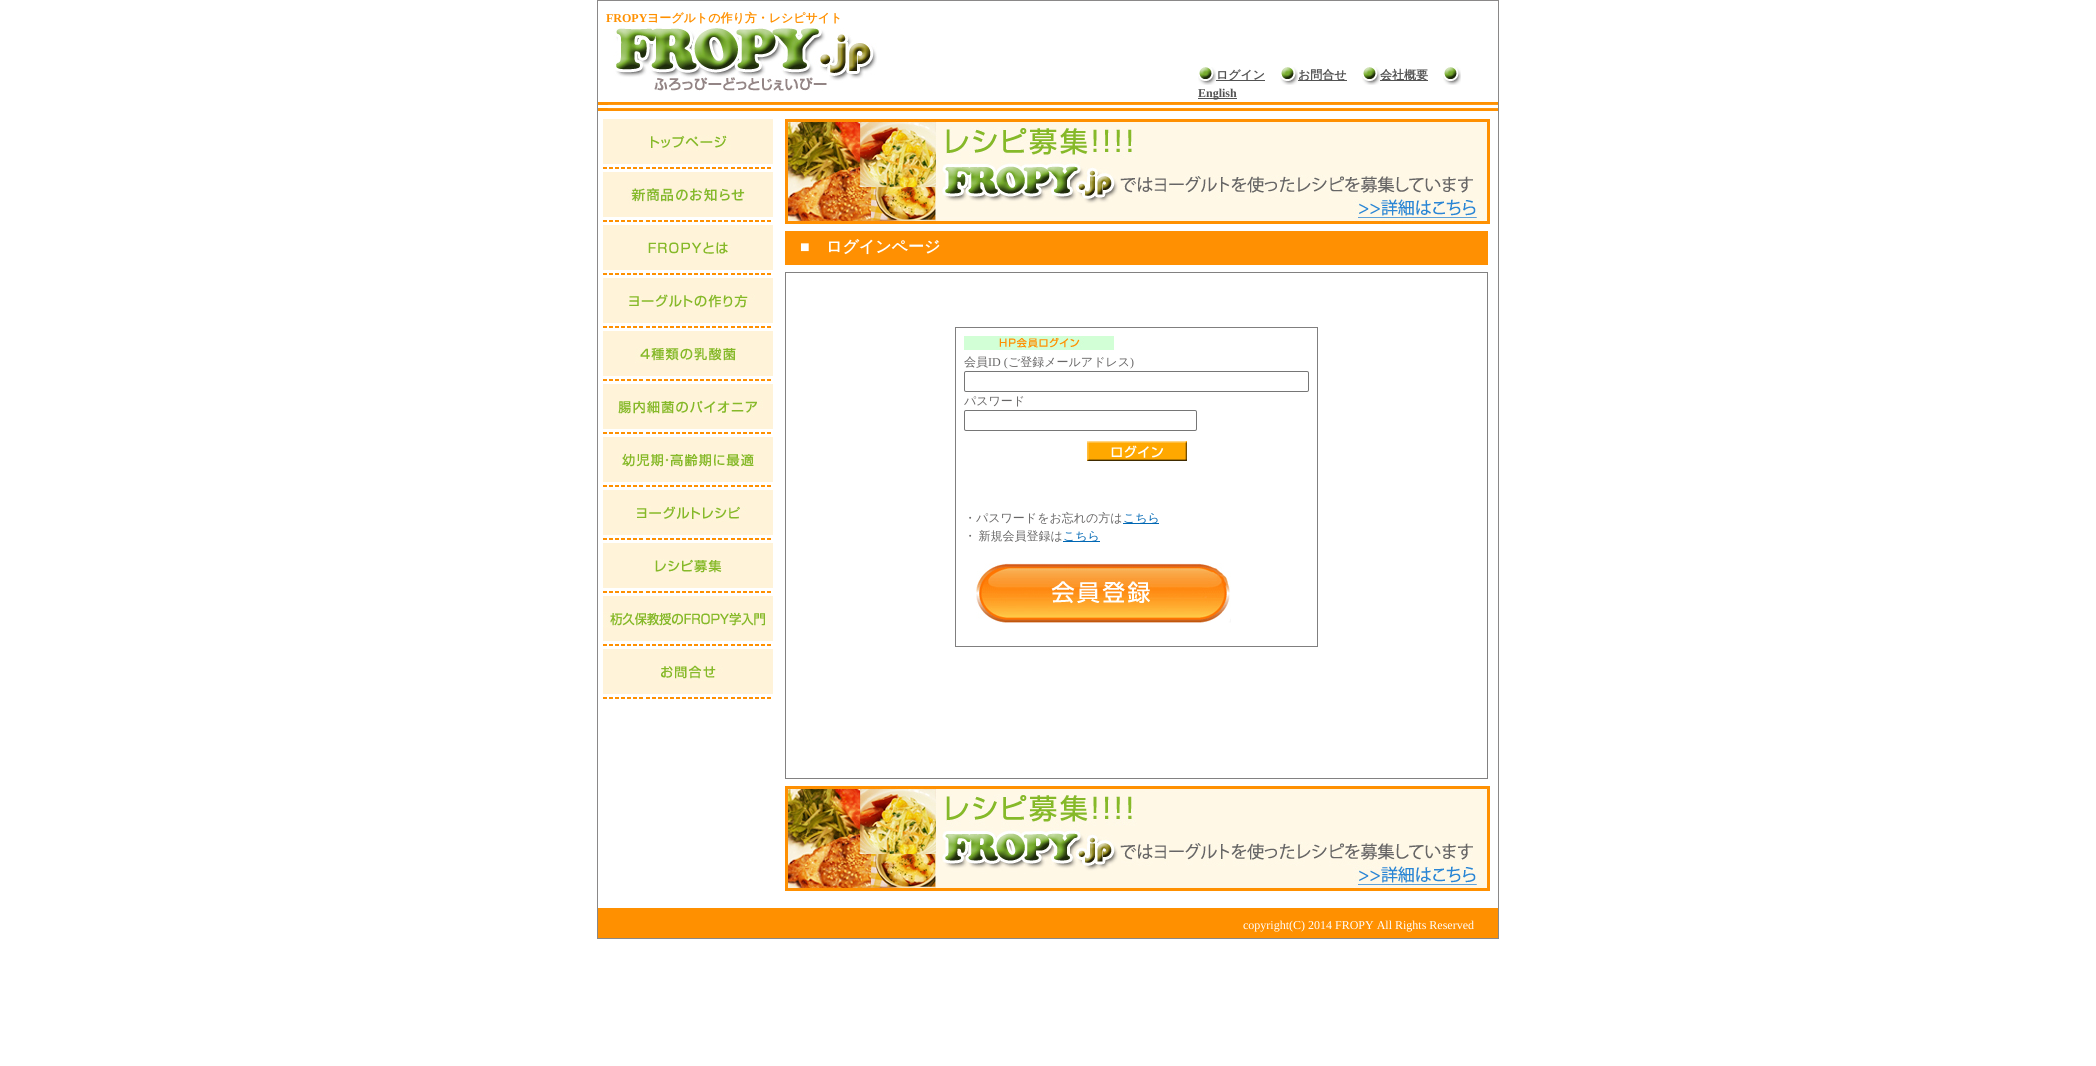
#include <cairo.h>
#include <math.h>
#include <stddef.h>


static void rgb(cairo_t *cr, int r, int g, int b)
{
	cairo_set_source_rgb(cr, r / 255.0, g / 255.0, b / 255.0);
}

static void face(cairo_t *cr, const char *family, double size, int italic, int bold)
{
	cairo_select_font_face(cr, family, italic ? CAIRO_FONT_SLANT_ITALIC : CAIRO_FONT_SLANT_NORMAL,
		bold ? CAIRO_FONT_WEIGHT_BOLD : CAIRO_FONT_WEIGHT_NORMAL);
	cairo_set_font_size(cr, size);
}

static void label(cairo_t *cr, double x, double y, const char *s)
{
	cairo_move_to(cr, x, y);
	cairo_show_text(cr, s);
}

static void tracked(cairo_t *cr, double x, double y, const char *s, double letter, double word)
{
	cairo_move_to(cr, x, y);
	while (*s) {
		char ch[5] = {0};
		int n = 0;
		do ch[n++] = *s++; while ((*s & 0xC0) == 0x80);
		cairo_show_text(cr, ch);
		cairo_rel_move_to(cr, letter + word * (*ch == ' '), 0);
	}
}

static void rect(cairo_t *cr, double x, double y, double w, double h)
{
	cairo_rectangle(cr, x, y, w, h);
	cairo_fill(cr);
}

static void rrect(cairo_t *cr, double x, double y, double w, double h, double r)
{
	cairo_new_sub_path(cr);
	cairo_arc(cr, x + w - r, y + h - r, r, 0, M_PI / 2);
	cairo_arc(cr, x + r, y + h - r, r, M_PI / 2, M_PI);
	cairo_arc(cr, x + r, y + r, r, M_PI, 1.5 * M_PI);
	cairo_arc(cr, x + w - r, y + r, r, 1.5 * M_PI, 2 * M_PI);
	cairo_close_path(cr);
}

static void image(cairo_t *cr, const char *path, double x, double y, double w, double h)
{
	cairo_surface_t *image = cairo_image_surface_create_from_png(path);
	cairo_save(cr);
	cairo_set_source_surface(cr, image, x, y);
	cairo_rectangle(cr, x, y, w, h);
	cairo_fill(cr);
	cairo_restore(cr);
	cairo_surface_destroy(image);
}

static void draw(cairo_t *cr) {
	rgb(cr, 255, 255, 255);
	cairo_paint(cr);
	cairo_rectangle(cr, 597.5, 0.5, 901, 938);
	rgb(cr, 138, 136, 136);
	cairo_set_line_width(cr, 1);
	cairo_stroke(cr);
	face(cr, "Liberation Serif", 12, 0, 1);
	rgb(cr, 255, 144, 0);
	label(cr, 606, 22, "FROPY");
	face(cr, "WenQuanYi Zen Hei", 12, 0, 1);
	label(cr, 647, 22, "ヨーグルトの作り方・レシピサイト");
	image(cr, "image0.png", 613, 28, 264, 63);
	image(cr, "image1.png", 1198, 67, 18, 18);
	rgb(cr, 82, 82, 82);
	rect(cr, 1216, 80, 49, 1);
	label(cr, 1216, 79, "ログイン");
	image(cr, "image1.png", 1280, 67, 18, 18);
	rect(cr, 1298, 80, 49, 1);
	label(cr, 1298, 79, "お問合せ");
	image(cr, "image1.png", 1362, 67, 18, 18);
	rect(cr, 1380, 80, 48, 1);
	label(cr, 1380, 79, "会社概要");
	image(cr, "image1.png", 1443, 67, 18, 18);
	rect(cr, 1198, 98, 39, 1);
	face(cr, "Liberation Serif", 12, 0, 1);
	label(cr, 1198, 97, "English");
	image(cr, "image2.png", 598, 102, 900, 9);
	image(cr, "image3.png", 603, 119, 170, 45);
	image(cr, "image4.png", 603, 167, 168, 2);
	image(cr, "image5.png", 603, 172, 170, 45);
	image(cr, "image4.png", 603, 220, 168, 2);
	image(cr, "image6.png", 603, 225, 170, 45);
	image(cr, "image4.png", 603, 273, 168, 2);
	image(cr, "image7.png", 603, 278, 170, 45);
	image(cr, "image4.png", 603, 326, 168, 2);
	image(cr, "image8.png", 603, 331, 170, 45);
	image(cr, "image4.png", 603, 379, 168, 2);
	image(cr, "image9.png", 603, 384, 170, 45);
	image(cr, "image4.png", 603, 432, 168, 2);
	image(cr, "image10.png", 603, 437, 170, 45);
	image(cr, "image4.png", 603, 485, 168, 2);
	image(cr, "image11.png", 603, 490, 170, 45);
	image(cr, "image4.png", 603, 538, 168, 2);
	image(cr, "image12.png", 603, 543, 170, 45);
	image(cr, "image4.png", 603, 591, 168, 2);
	image(cr, "image13.png", 603, 596, 170, 45);
	image(cr, "image4.png", 603, 644, 168, 2);
	image(cr, "image14.png", 603, 649, 170, 45);
	image(cr, "image4.png", 603, 697, 168, 2);
	image(cr, "image15.png", 785, 119, 705, 105);
	rgb(cr, 255, 144, 2);
	rect(cr, 785, 231, 703, 34);
	face(cr, "Liberation Serif", 16, 0, 1);
	rgb(cr, 255, 255, 255);
	label(cr, 800, 252, "■");
	face(cr, "WenQuanYi Zen Hei", 16, 0, 1);
	label(cr, 826, 252, "ログインページ");
	cairo_rectangle(cr, 785.5, 272.5, 702, 506);
	rgb(cr, 130, 129, 129);
	cairo_stroke(cr);
	cairo_rectangle(cr, 955.5, 327.5, 362, 319);
	rgb(cr, 128, 127, 127);
	cairo_stroke(cr);
	image(cr, "image16.png", 964, 336, 150, 14);
	face(cr, "WenQuanYi Zen Hei Medium", 12, 0, 0);
	rgb(cr, 103, 102, 102);
	label(cr, 964, 366, "会員");
	face(cr, "Liberation Serif", 12, 0, 0);
	label(cr, 988, 366, "ID (");
	face(cr, "WenQuanYi Zen Hei Medium", 12, 0, 0);
	label(cr, 1008, 366, "ご登録メールアドレス");
	face(cr, "Liberation Serif", 12, 0, 0);
	label(cr, 1130, 366, ")");
	rrect(cr, 964.5, 371.5, 344, 20, 1.5);
	rgb(cr, 118, 118, 118);
	cairo_stroke(cr);
	face(cr, "WenQuanYi Zen Hei Medium", 12, 0, 0);
	rgb(cr, 103, 102, 102);
	label(cr, 964, 405, "パスワード");
	rrect(cr, 964.5, 410.5, 232, 20, 1.5);
	rgb(cr, 118, 118, 118);
	cairo_stroke(cr);
	image(cr, "image17.png", 1087, 441, 100, 20);
	rgb(cr, 103, 102, 102);
	label(cr, 964, 522, "・パスワードをお忘れの方は");
	rgb(cr, 0, 103, 180);
	rect(cr, 1123, 523, 36, 1);
	label(cr, 1123, 522, "こちら");
	rgb(cr, 103, 102, 102);
	tracked(cr, 964, 540, "・ 新規会員登録は", 0, -1);
	rgb(cr, 0, 103, 180);
	rect(cr, 1063, 541, 37, 1);
	label(cr, 1063, 540, "こちら");
	image(cr, "image18.png", 976, 563, 255, 60);
	image(cr, "image15.png", 785, 786, 705, 105);
	rgb(cr, 255, 144, 0);
	rect(cr, 598, 908, 900, 30);
	face(cr, "Liberation Serif", 12, 0, 0);
	rgb(cr, 255, 255, 255);
	label(cr, 1243, 929, "copyright(C) 2014 FROPY All Rights Reserved");
}

int main(void) {
	cairo_surface_t *surface = cairo_image_surface_create(CAIRO_FORMAT_RGB24, 2096, 1066);
	cairo_t *cr = cairo_create(surface);
	cairo_font_options_t *options = cairo_font_options_create();
	cairo_font_options_set_hint_metrics(options, CAIRO_HINT_METRICS_OFF);
	cairo_font_options_set_hint_style(options, CAIRO_HINT_STYLE_NONE);
	cairo_set_font_options(cr, options);
	cairo_set_miter_limit(cr, 4);
	draw(cr);
	cairo_surface_write_to_png(surface, "render.png");
	cairo_font_options_destroy(options);
	cairo_destroy(cr);
	cairo_surface_destroy(surface);
	return 0;
}
